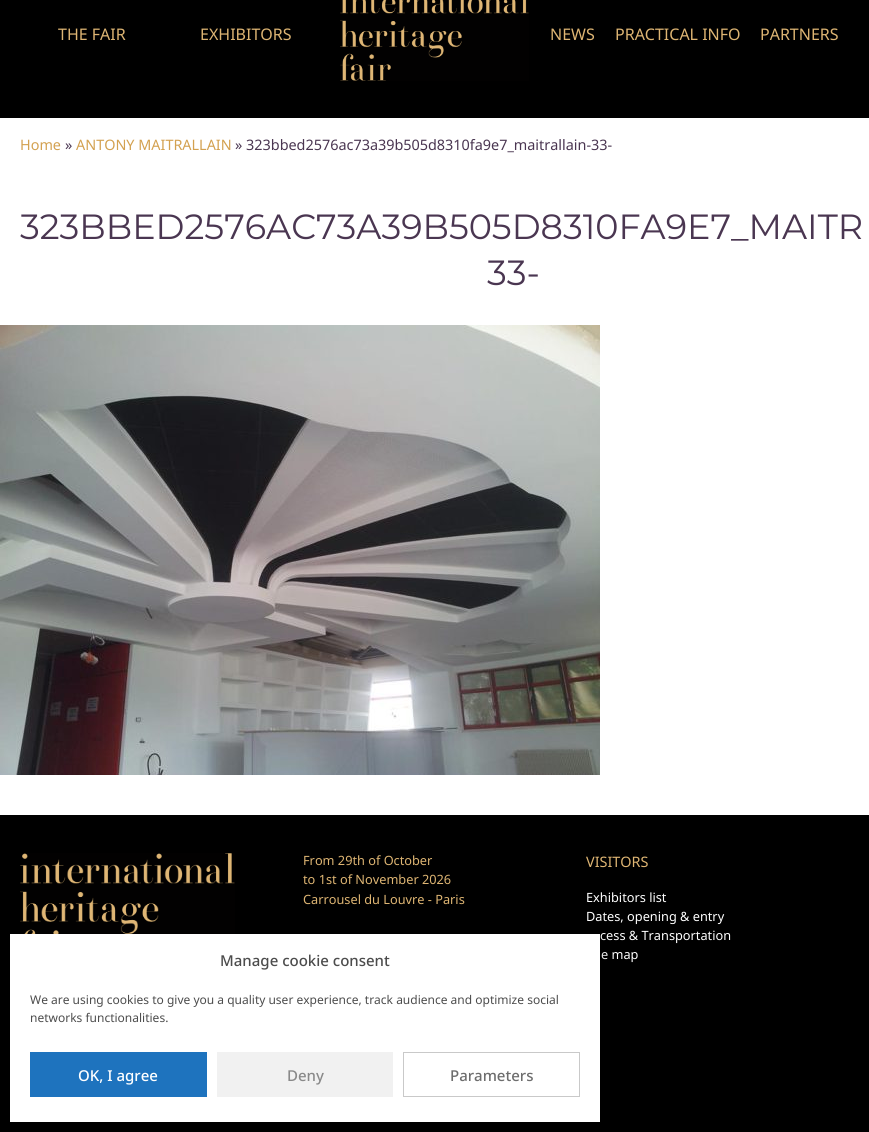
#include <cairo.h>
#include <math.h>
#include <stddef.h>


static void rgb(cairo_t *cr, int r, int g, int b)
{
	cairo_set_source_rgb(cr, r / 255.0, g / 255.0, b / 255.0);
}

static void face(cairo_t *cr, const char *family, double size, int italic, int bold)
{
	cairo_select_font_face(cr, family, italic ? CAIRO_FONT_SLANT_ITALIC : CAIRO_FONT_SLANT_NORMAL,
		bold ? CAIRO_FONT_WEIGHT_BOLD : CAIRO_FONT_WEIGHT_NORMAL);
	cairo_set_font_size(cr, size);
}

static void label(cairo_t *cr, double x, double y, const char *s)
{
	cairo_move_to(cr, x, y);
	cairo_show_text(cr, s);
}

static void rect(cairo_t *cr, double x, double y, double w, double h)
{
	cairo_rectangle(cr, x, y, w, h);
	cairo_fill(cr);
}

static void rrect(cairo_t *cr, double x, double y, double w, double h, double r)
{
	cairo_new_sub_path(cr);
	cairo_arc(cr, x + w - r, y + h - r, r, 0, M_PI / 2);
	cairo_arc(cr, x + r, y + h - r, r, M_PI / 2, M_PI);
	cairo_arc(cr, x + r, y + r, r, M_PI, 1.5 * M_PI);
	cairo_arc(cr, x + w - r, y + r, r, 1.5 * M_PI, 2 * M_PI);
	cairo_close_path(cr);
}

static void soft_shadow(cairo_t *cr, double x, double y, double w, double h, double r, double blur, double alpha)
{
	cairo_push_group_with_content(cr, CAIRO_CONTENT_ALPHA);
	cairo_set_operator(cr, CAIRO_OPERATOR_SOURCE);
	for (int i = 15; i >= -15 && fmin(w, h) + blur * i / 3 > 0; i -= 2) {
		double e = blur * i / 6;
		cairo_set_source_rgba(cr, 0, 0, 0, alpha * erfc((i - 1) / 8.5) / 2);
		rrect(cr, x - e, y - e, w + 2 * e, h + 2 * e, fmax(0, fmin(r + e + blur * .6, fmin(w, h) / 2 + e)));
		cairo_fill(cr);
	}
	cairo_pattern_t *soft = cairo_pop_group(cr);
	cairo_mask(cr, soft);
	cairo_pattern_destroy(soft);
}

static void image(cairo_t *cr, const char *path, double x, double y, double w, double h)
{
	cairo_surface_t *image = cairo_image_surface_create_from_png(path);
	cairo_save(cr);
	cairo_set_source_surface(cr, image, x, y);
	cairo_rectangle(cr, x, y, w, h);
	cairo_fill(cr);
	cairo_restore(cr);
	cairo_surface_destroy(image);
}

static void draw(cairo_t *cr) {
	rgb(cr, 255, 255, 255);
	cairo_paint(cr);
	rgb(cr, 0, 0, 0);
	rect(cr, 0, 0, 869, 118);
	face(cr, "Noto Sans", 16, 0, 0);
	rgb(cr, 222, 181, 115);
	label(cr, 58, 40, "THE FAIR");
	label(cr, 200, 40, "EXHIBITORS");
	image(cr, "image0.png", 340, 0, 189, 81);
	label(cr, 550, 40, "NEWS");
	label(cr, 615, 40, "PRACTICAL INFO");
	label(cr, 760, 40, "PARTNERS");
	face(cr, "Noto Sans", 14.4, 0, 0);
	rgb(cr, 211, 161, 80);
	label(cr, 20, 150, "Home");
	rgb(cr, 74, 54, 81);
	label(cr, 65, 150, "»");
	rgb(cr, 211, 161, 80);
	label(cr, 76, 150, "ANTONY MAITRALLAIN");
	rgb(cr, 74, 54, 81);
	label(cr, 235, 150, "» 323bbed2576ac73a39b505d8310fa9e7_maitrallain-33-");
	face(cr, "Montserrat", 35, 0, 0);
	label(cr, 20, 239, "323BBED2576AC73A39B505D8310FA9E7_MAITR");
	label(cr, 487, 285, "33-");
	image(cr, "image1.png", 0, 325, 600, 450);
	rgb(cr, 0, 0, 0);
	rect(cr, 0, 815, 869, 317);
	image(cr, "image2.png", 20, 853, 215, 81);
	face(cr, "Noto Sans", 12.75, 0, 0);
	rgb(cr, 222, 181, 115);
	label(cr, 303, 865, "From 29th of October");
	label(cr, 303, 884, "to 1st of November 2026");
	label(cr, 303, 904, "Carrousel du Louvre - Paris");
	face(cr, "Noto Sans", 14.4, 0, 0);
	label(cr, 586, 867, "VISITORS");
	face(cr, "Noto Sans", 12.75, 0, 0);
	rgb(cr, 255, 255, 255);
	label(cr, 586, 902, "Exhibitors list");
	label(cr, 586, 921, "Dates, opening & entry");
	label(cr, 600, 940, "cess & Transportation");
	label(cr, 601, 959, "e map");
	rgb(cr, 0, 0, 0);
	soft_shadow(cr, 10, 940, 590, 188, 0, 3, 0.23);
	soft_shadow(cr, 10, 944, 590, 188, 0, 10, 0.19);
	rgb(cr, 255, 255, 255);
	rect(cr, 10, 934, 590, 188);
	face(cr, "Noto Sans Medium", 15, 0, 0);
	rgb(cr, 76, 76, 76);
	label(cr, 220, 966, "Manage cookie consent");
	face(cr, "Noto Sans", 12, 0, 0);
	label(cr, 30, 1004, "We are using cookies to give you a quality user experience, track audience and optimize social");
	label(cr, 30, 1022, "networks functionalities.");
	rgb(cr, 30, 115, 190);
	rect(cr, 30, 1052, 177, 45);
	face(cr, "Noto Sans Medium", 15, 0, 0);
	rgb(cr, 255, 255, 255);
	label(cr, 78, 1081, "OK, I agree");
	rgb(cr, 241, 241, 241);
	rect(cr, 217, 1052, 176, 45);
	rgb(cr, 137, 137, 137);
	label(cr, 287, 1081, "Deny");
	cairo_rectangle(cr, 403.5, 1052.5, 176, 44);
	rgb(cr, 201, 201, 201);
	cairo_set_line_width(cr, 1);
	cairo_stroke(cr);
	rgb(cr, 109, 109, 109);
	label(cr, 450, 1081, "Parameters");
}

int main(void) {
	cairo_surface_t *surface = cairo_image_surface_create(CAIRO_FORMAT_RGB24, 869, 1132);
	cairo_t *cr = cairo_create(surface);
	cairo_font_options_t *options = cairo_font_options_create();
	cairo_font_options_set_hint_metrics(options, CAIRO_HINT_METRICS_OFF);
	cairo_font_options_set_hint_style(options, CAIRO_HINT_STYLE_NONE);
	cairo_set_font_options(cr, options);
	cairo_set_miter_limit(cr, 4);
	draw(cr);
	cairo_surface_write_to_png(surface, "render.png");
	cairo_font_options_destroy(options);
	cairo_destroy(cr);
	cairo_surface_destroy(surface);
	return 0;
}
